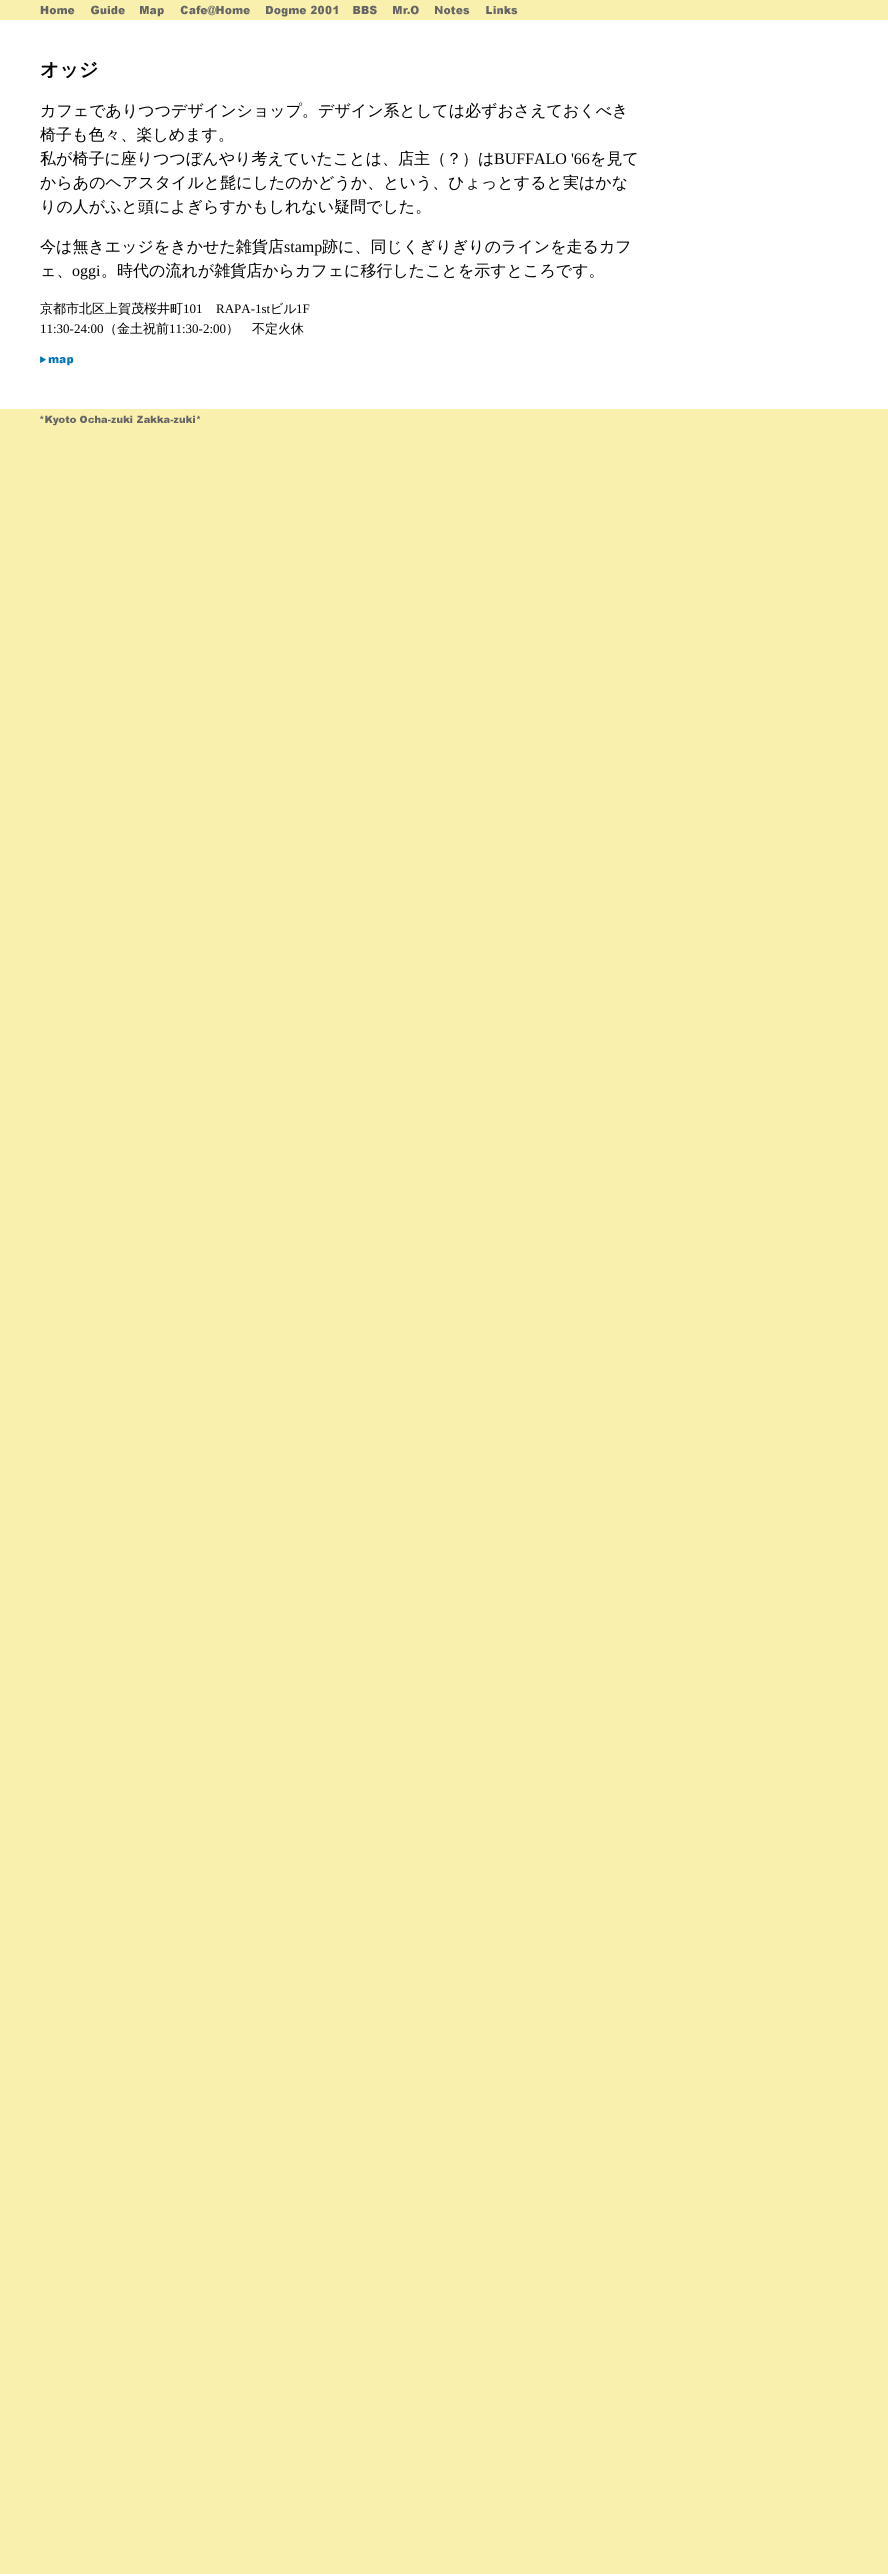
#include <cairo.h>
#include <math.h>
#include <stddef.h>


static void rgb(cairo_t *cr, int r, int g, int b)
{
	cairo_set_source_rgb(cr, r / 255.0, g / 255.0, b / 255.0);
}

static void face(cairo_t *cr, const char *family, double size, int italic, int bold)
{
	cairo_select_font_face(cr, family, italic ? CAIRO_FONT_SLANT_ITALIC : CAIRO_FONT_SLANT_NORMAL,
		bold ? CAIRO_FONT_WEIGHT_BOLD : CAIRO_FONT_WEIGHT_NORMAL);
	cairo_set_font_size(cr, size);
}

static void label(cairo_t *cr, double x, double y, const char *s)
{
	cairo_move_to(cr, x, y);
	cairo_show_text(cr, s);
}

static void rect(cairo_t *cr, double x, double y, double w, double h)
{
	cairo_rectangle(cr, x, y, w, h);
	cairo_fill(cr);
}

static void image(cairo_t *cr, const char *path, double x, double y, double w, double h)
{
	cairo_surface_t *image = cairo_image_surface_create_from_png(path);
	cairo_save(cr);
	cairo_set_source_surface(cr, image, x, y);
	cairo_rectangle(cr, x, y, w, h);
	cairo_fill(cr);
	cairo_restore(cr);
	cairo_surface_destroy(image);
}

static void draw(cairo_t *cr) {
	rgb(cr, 249, 240, 174);
	cairo_paint(cr);
	rgb(cr, 255, 255, 255);
	rect(cr, 0, 20, 888, 389);
	image(cr, "image0.png", 40, 6, 35, 9);
	image(cr, "image1.png", 91, 5, 34, 10);
	image(cr, "image2.png", 140, 6, 24, 11);
	image(cr, "image3.png", 180, 5, 70, 11);
	image(cr, "image4.png", 266, 5, 72, 12);
	image(cr, "image5.png", 353, 5, 24, 10);
	image(cr, "image6.png", 393, 5, 26, 10);
	image(cr, "image7.png", 435, 6, 35, 9);
	image(cr, "image8.png", 486, 6, 32, 9);
	face(cr, "WenQuanYi Zen Hei", 19, 0, 1);
	rgb(cr, 0, 0, 0);
	label(cr, 40, 76, "オッジ");
	face(cr, "WenQuanYi Zen Hei Medium", 16, 0, 0);
	label(cr, 40, 116, "カフェでありつつデザインショップ。デザイン系としては必ずおさえておくべき");
	label(cr, 40, 140, "椅子も色々、楽しめます。");
	label(cr, 40, 164, "私が椅子に座りつつぼんやり考えていたことは、店主（？）は");
	face(cr, "Liberation Serif", 16, 0, 0);
	label(cr, 494, 164, "BUFFALO '66");
	face(cr, "WenQuanYi Zen Hei Medium", 16, 0, 0);
	label(cr, 590, 164, "を見て");
	label(cr, 40, 188, "からあのヘアスタイルと髭にしたのかどうか、という、ひょっとすると実はかな");
	label(cr, 40, 212, "りの人がふと頭によぎらすかもしれない疑問でした。");
	label(cr, 40, 252, "今は無きエッジをきかせた雑貨店");
	face(cr, "Liberation Serif", 16, 0, 0);
	label(cr, 284, 252, "stamp");
	face(cr, "WenQuanYi Zen Hei Medium", 16, 0, 0);
	label(cr, 322, 252, "跡に、同じくぎりぎりのラインを走るカフ");
	label(cr, 40, 276, "ェ、");
	face(cr, "Liberation Serif", 16, 0, 0);
	label(cr, 72, 276, "oggi");
	face(cr, "WenQuanYi Zen Hei Medium", 16, 0, 0);
	label(cr, 101, 276, "。時代の流れが雑貨店からカフェに移行したことを示すところです。");
	face(cr, "WenQuanYi Zen Hei Medium", 13, 0, 0);
	label(cr, 40, 313, "京都市北区上賀茂桜井町");
	face(cr, "Liberation Serif", 13, 0, 0);
	label(cr, 183, 313, "101");
	label(cr, 216, 313, "RAPA-1st");
	face(cr, "WenQuanYi Zen Hei Medium", 13, 0, 0);
	label(cr, 270, 313, "ビル");
	face(cr, "Liberation Serif", 13, 0, 0);
	label(cr, 296, 313, "1F");
	label(cr, 40, 333, "11:30-24:00");
	face(cr, "WenQuanYi Zen Hei Medium", 13, 0, 0);
	label(cr, 104, 333, "（金土祝前");
	face(cr, "Liberation Serif", 13, 0, 0);
	label(cr, 169, 333, "11:30-2:00");
	face(cr, "WenQuanYi Zen Hei Medium", 13, 0, 0);
	label(cr, 226, 333, "）　不定火休");
	image(cr, "image9.png", 40, 356, 34, 10);
	image(cr, "image10.png", 40, 415, 161, 11);
}

int main(void) {
	cairo_surface_t *surface = cairo_image_surface_create(CAIRO_FORMAT_RGB24, 888, 2574);
	cairo_t *cr = cairo_create(surface);
	cairo_font_options_t *options = cairo_font_options_create();
	cairo_font_options_set_hint_metrics(options, CAIRO_HINT_METRICS_OFF);
	cairo_font_options_set_hint_style(options, CAIRO_HINT_STYLE_NONE);
	cairo_set_font_options(cr, options);
	cairo_set_miter_limit(cr, 4);
	draw(cr);
	cairo_surface_write_to_png(surface, "render.png");
	cairo_font_options_destroy(options);
	cairo_destroy(cr);
	cairo_surface_destroy(surface);
	return 0;
}
